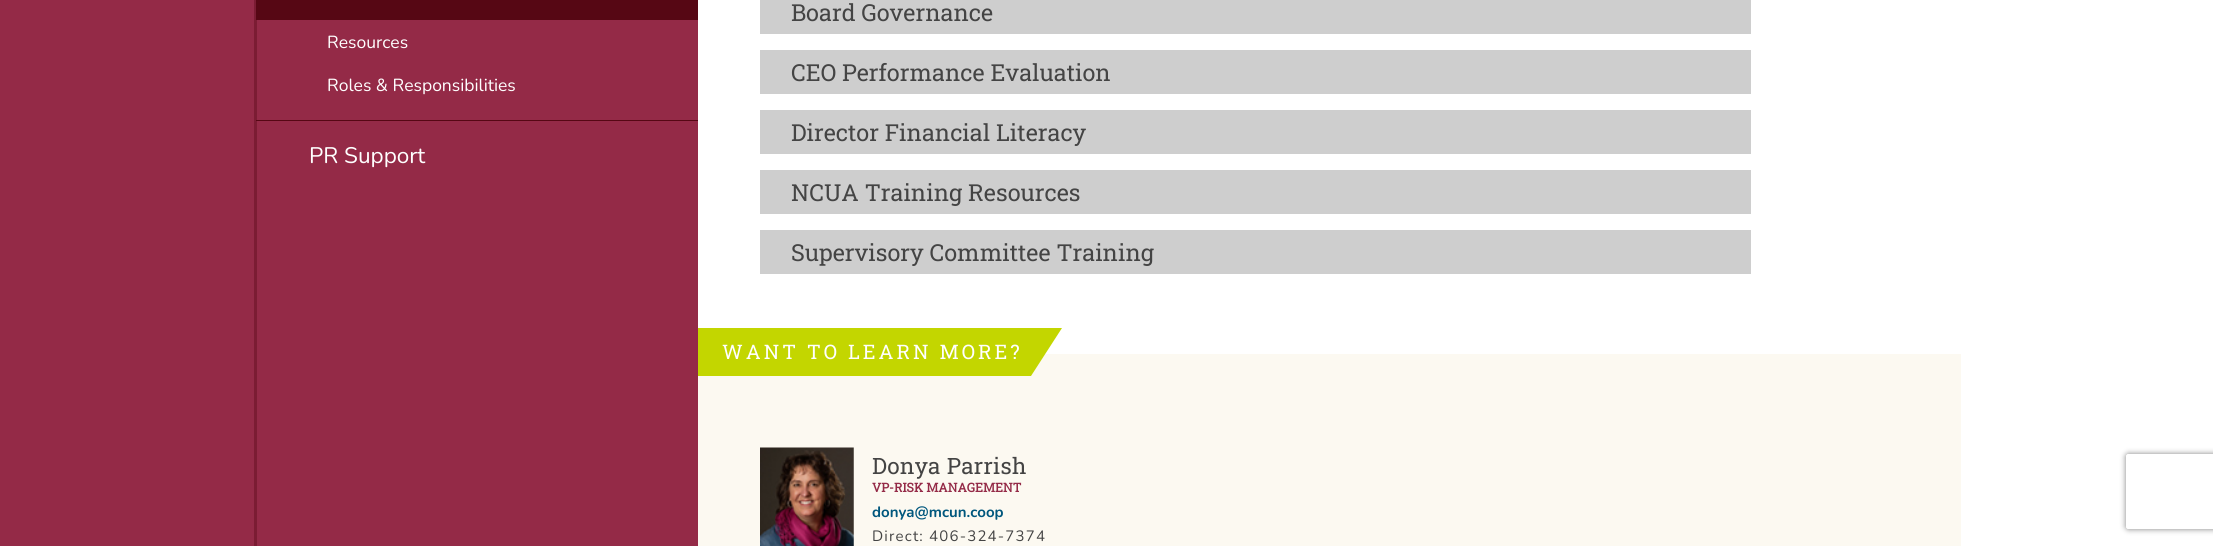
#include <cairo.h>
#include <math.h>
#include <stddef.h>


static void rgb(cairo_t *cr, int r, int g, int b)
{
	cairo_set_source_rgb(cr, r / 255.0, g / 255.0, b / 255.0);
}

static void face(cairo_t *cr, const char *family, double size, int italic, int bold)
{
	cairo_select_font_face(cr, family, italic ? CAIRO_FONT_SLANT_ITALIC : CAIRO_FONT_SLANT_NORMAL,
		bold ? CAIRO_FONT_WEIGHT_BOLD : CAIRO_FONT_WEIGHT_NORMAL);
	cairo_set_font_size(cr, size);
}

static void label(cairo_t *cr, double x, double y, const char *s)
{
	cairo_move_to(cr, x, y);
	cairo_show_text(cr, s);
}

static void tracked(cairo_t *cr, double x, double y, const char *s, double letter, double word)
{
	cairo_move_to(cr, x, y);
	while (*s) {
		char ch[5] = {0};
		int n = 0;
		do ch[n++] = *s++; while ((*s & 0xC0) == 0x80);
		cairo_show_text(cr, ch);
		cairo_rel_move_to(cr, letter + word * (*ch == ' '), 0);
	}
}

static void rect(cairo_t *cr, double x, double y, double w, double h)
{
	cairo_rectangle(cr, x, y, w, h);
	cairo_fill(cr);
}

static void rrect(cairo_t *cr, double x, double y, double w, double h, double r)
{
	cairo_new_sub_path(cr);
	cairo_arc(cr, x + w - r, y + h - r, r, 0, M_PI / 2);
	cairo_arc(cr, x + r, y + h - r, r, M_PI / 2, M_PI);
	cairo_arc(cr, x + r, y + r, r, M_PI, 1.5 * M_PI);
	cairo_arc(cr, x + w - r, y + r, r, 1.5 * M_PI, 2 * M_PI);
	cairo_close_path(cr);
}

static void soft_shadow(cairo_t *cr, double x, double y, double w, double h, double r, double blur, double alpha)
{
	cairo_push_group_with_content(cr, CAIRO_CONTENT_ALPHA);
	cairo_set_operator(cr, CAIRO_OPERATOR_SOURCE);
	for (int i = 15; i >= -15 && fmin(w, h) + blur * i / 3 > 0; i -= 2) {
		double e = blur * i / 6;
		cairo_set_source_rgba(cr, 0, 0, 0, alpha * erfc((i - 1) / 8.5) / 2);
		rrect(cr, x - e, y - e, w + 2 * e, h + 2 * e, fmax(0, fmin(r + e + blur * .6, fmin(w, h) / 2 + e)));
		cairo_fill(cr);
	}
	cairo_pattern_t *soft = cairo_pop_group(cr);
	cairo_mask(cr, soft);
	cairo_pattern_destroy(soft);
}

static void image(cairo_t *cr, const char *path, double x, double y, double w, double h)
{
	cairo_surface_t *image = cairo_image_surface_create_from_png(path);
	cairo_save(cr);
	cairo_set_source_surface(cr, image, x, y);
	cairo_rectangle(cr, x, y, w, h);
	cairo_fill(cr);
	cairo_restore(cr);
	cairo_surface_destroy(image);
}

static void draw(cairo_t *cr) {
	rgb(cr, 255, 255, 255);
	cairo_paint(cr);
	rgb(cr, 148, 42, 71);
	rect(cr, 0, 0, 254, 546);
	rect(cr, 257, 20, 441, 526);
	rgb(cr, 123, 28, 51);
	rect(cr, 254, 0, 3, 546);
	rgb(cr, 86, 7, 20);
	rect(cr, 256, 0, 442, 20);
	face(cr, "Nunito", 17.5, 0, 0);
	rgb(cr, 255, 255, 255);
	label(cr, 327, 48, "Resources");
	label(cr, 327, 91, "Roles & Responsibilities");
	rgb(cr, 86, 7, 20);
	rect(cr, 256, 120, 442, 1);
	face(cr, "Nunito", 22.5, 0, 0);
	rgb(cr, 255, 255, 255);
	label(cr, 309, 163, "PR Support");
	rgb(cr, 206, 206, 206);
	rect(cr, 760, 0, 991, 34);
	face(cr, "Roboto Slab", 23.4, 0, 0);
	rgb(cr, 68, 68, 68);
	label(cr, 791, 21, "Board Governance");
	rgb(cr, 206, 206, 206);
	rect(cr, 760, 50, 991, 44);
	rgb(cr, 68, 68, 68);
	label(cr, 791, 81, "CEO Performance Evaluation");
	rgb(cr, 206, 206, 206);
	rect(cr, 760, 110, 991, 44);
	rgb(cr, 68, 68, 68);
	label(cr, 791, 141, "Director Financial Literacy");
	rgb(cr, 206, 206, 206);
	rect(cr, 760, 170, 991, 44);
	rgb(cr, 68, 68, 68);
	label(cr, 791, 201, "NCUA Training Resources");
	rgb(cr, 206, 206, 206);
	rect(cr, 760, 230, 991, 44);
	rgb(cr, 68, 68, 68);
	label(cr, 791, 261, "Supervisory Committee Training");
	rgb(cr, 252, 249, 241);
	rect(cr, 698, 354, 1263, 192);
	rgb(cr, 195, 214, 0);
	rect(cr, 698, 328, 333, 48);
	face(cr, "Roboto Slab", 20, 0, 0);
	rgb(cr, 255, 255, 255);
	tracked(cr, 722, 359, "WANT TO LEARN MORE?", 3, 0);
	rgb(cr, 195, 214, 0);
	cairo_new_path(cr);
	cairo_move_to(cr, 1031, 328);
	cairo_line_to(cr, 1062, 328);
	cairo_line_to(cr, 1031, 376);
	cairo_close_path(cr);
	cairo_fill(cr);
	image(cr, "image0.png", 760, 447, 94, 99);
	face(cr, "Roboto Slab", 22.5, 0, 0);
	rgb(cr, 68, 68, 68);
	tracked(cr, 872, 474, "Donya Parrish", 0.25, 0);
	face(cr, "Roboto Slab", 12.5, 0, 1);
	rgb(cr, 148, 42, 71);
	label(cr, 872, 492, "VP-RISK MANAGEMENT");
	face(cr, "Nunito", 15, 0, 1);
	rgb(cr, 0, 87, 125);
	label(cr, 872, 517, "donya@mcun.coop");
	face(cr, "Nunito", 15, 0, 0);
	rgb(cr, 68, 68, 68);
	tracked(cr, 872, 541, "Direct: 406-324-7374", 1.2, 0);
	cairo_save(cr);
	cairo_set_fill_rule(cr, CAIRO_FILL_RULE_EVEN_ODD);
	cairo_new_path(cr);
	cairo_move_to(cr, 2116, 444);
	cairo_line_to(cr, 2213, 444);
	cairo_line_to(cr, 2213, 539);
	cairo_line_to(cr, 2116, 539);
	cairo_close_path(cr);
	cairo_move_to(cr, 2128.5, 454);
	cairo_line_to(cr, 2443.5, 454);
	cairo_curve_to(cr, 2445, 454, 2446, 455, 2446, 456.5);
	cairo_line_to(cr, 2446, 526.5);
	cairo_curve_to(cr, 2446, 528, 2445, 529, 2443.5, 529);
	cairo_line_to(cr, 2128.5, 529);
	cairo_curve_to(cr, 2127, 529, 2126, 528, 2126, 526.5);
	cairo_line_to(cr, 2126, 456.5);
	cairo_curve_to(cr, 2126, 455, 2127, 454, 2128.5, 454);
	cairo_close_path(cr);
	cairo_clip(cr);
	rgb(cr, 128, 128, 128);
	soft_shadow(cr, 2126, 454, 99, 75, 2.5, 3, 1);
	cairo_restore(cr);
}

int main(void) {
	cairo_surface_t *surface = cairo_image_surface_create(CAIRO_FORMAT_RGB24, 2213, 546);
	cairo_t *cr = cairo_create(surface);
	cairo_font_options_t *options = cairo_font_options_create();
	cairo_font_options_set_hint_metrics(options, CAIRO_HINT_METRICS_OFF);
	cairo_font_options_set_hint_style(options, CAIRO_HINT_STYLE_NONE);
	cairo_set_font_options(cr, options);
	cairo_set_miter_limit(cr, 4);
	draw(cr);
	cairo_surface_write_to_png(surface, "render.png");
	cairo_font_options_destroy(options);
	cairo_destroy(cr);
	cairo_surface_destroy(surface);
	return 0;
}
